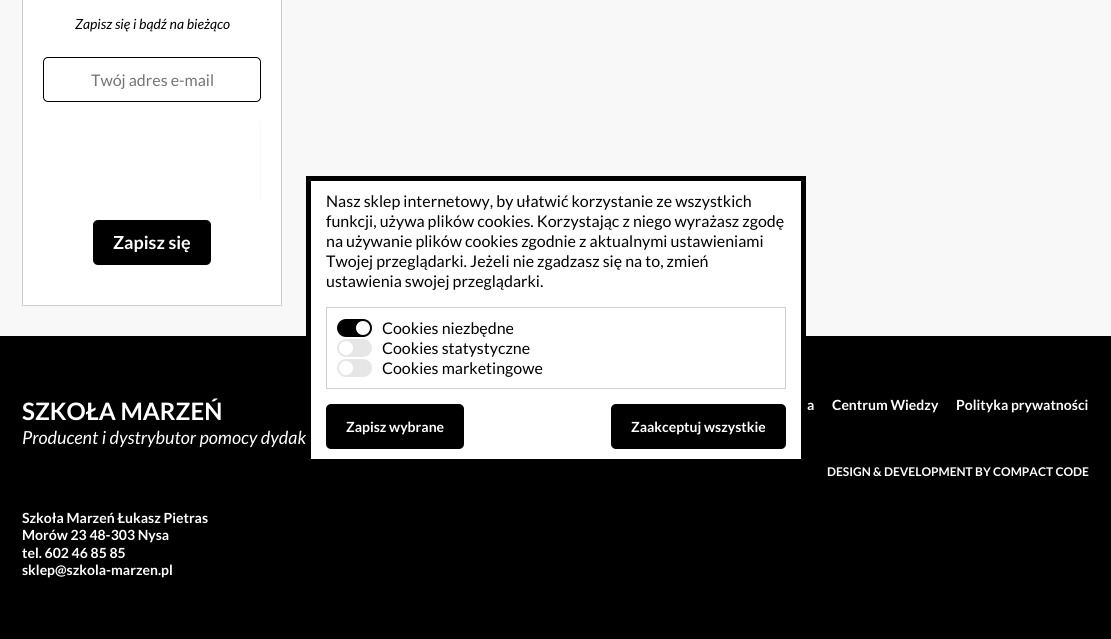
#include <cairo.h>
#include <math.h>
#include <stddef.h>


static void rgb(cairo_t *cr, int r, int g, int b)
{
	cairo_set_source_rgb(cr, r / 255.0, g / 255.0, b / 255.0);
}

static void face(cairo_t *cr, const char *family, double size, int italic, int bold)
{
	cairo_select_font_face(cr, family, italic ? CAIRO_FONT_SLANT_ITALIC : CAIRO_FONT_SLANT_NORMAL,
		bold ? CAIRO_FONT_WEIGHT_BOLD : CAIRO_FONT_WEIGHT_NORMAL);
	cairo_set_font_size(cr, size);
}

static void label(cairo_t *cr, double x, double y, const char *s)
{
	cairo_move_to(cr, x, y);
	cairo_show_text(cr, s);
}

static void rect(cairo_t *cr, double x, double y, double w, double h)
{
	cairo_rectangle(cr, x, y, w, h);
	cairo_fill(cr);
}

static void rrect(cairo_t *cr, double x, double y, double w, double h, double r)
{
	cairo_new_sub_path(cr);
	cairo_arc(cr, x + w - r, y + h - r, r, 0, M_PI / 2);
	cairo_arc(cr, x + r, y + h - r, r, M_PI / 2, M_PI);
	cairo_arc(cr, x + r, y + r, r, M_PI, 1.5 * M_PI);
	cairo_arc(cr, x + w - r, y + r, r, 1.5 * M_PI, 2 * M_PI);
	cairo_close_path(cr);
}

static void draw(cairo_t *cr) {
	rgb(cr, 248, 248, 248);
	cairo_paint(cr);
	rgb(cr, 255, 255, 255);
	cairo_rectangle(cr, 22.5, -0.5, 259, 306);
	cairo_fill_preserve(cr);
	rgb(cr, 206, 206, 206);
	cairo_set_line_width(cr, 1);
	cairo_stroke(cr);
	face(cr, "Lato", 14, 1, 0);
	rgb(cr, 0, 0, 0);
	label(cr, 75, 29, "Zapisz się i bądź na bieżąco");
	rrect(cr, 43.5, 57.5, 217, 44, 4.5);
	cairo_stroke(cr);
	face(cr, "Lato", 16, 0, 0);
	rgb(cr, 117, 117, 117);
	label(cr, 91, 86, "Twój adres e-mail");
	rgb(cr, 249, 249, 249);
	rect(cr, 260, 122, 1, 78);
	rgb(cr, 0, 0, 0);
	rrect(cr, 93, 220, 118, 45, 5);
	cairo_fill(cr);
	face(cr, "Lato", 18, 0, 1);
	rgb(cr, 255, 255, 255);
	label(cr, 113, 249, "Zapisz się");
	rgb(cr, 0, 0, 0);
	rect(cr, 0, 336, 1111, 303);
	rgb(cr, 255, 255, 255);
	cairo_rectangle(cr, 308.5, 178.5, 495, 283);
	cairo_fill_preserve(cr);
	rgb(cr, 0, 0, 0);
	cairo_set_line_width(cr, 5);
	cairo_stroke(cr);
	face(cr, "Lato", 16, 0, 0);
	label(cr, 326, 207, "Nasz sklep internetowy, by ułatwić korzystanie ze wszystkich");
	label(cr, 326, 227, "funkcji, używa plików cookies. Korzystając z niego wyrażasz zgodę");
	label(cr, 326, 247, "na używanie plików cookies zgodnie z aktualnymi ustawieniami");
	label(cr, 326, 267, "Twojej przeglądarki. Jeżeli nie zgadzasz się na to, zmień");
	label(cr, 326, 287, "ustawienia swojej przeglądarki.");
	cairo_rectangle(cr, 326.5, 307.5, 459, 81);
	rgb(cr, 209, 209, 209);
	cairo_set_line_width(cr, 1);
	cairo_stroke(cr);
	rgb(cr, 0, 0, 0);
	rrect(cr, 337, 319, 35, 18, 9);
	cairo_fill(cr);
	rgb(cr, 255, 255, 255);
	cairo_arc(cr, 363, 328, 7, 0, 2 * M_PI);
	cairo_fill(cr);
	rgb(cr, 0, 0, 0);
	label(cr, 382, 334, "Cookies niezbędne");
	rgb(cr, 230, 230, 230);
	rrect(cr, 337, 339, 35, 18, 9);
	cairo_fill(cr);
	rgb(cr, 255, 255, 255);
	cairo_arc(cr, 346, 348, 7, 0, 2 * M_PI);
	cairo_fill(cr);
	rgb(cr, 0, 0, 0);
	label(cr, 382, 354, "Cookies statystyczne");
	rgb(cr, 230, 230, 230);
	rrect(cr, 337, 359, 35, 18, 9);
	cairo_fill(cr);
	rgb(cr, 255, 255, 255);
	cairo_arc(cr, 346, 368, 7, 0, 2 * M_PI);
	cairo_fill(cr);
	rgb(cr, 0, 0, 0);
	label(cr, 382, 374, "Cookies marketingowe");
	rrect(cr, 326, 404, 138, 45, 5);
	cairo_fill(cr);
	face(cr, "Lato", 14, 0, 1);
	rgb(cr, 255, 255, 255);
	label(cr, 346, 432, "Zapisz wybrane");
	rgb(cr, 0, 0, 0);
	rrect(cr, 611, 404, 175, 45, 5);
	cairo_fill(cr);
	rgb(cr, 255, 255, 255);
	label(cr, 631, 432, "Zaakceptuj wszystkie");
	face(cr, "Lato", 24, 0, 1);
	label(cr, 22, 420, "SZKOŁA MARZEŃ");
	face(cr, "Lato", 18, 1, 0);
	label(cr, 22, 444, "Producent i dystrybutor pomocy dydak");
	face(cr, "Lato", 14, 0, 1);
	label(cr, 22, 523, "Szkoła Marzeń Łukasz Pietras");
	label(cr, 22, 540, "Morów 23 48-303 Nysa");
	label(cr, 22, 558, "tel. 602 46 85 85");
	label(cr, 22, 575, "sklep@szkola-marzen.pl");
	label(cr, 807, 410, "a");
	label(cr, 832, 410, "Centrum Wiedzy");
	label(cr, 956, 410, "Polityka prywatności");
	face(cr, "Lato", 12, 0, 1);
	label(cr, 827, 476, "DESIGN & DEVELOPMENT BY COMPACT CODE");
}

int main(void) {
	cairo_surface_t *surface = cairo_image_surface_create(CAIRO_FORMAT_RGB24, 1111, 639);
	cairo_t *cr = cairo_create(surface);
	cairo_font_options_t *options = cairo_font_options_create();
	cairo_font_options_set_hint_metrics(options, CAIRO_HINT_METRICS_OFF);
	cairo_font_options_set_hint_style(options, CAIRO_HINT_STYLE_NONE);
	cairo_set_font_options(cr, options);
	cairo_set_miter_limit(cr, 4);
	draw(cr);
	cairo_surface_write_to_png(surface, "render.png");
	cairo_font_options_destroy(options);
	cairo_destroy(cr);
	cairo_surface_destroy(surface);
	return 0;
}
